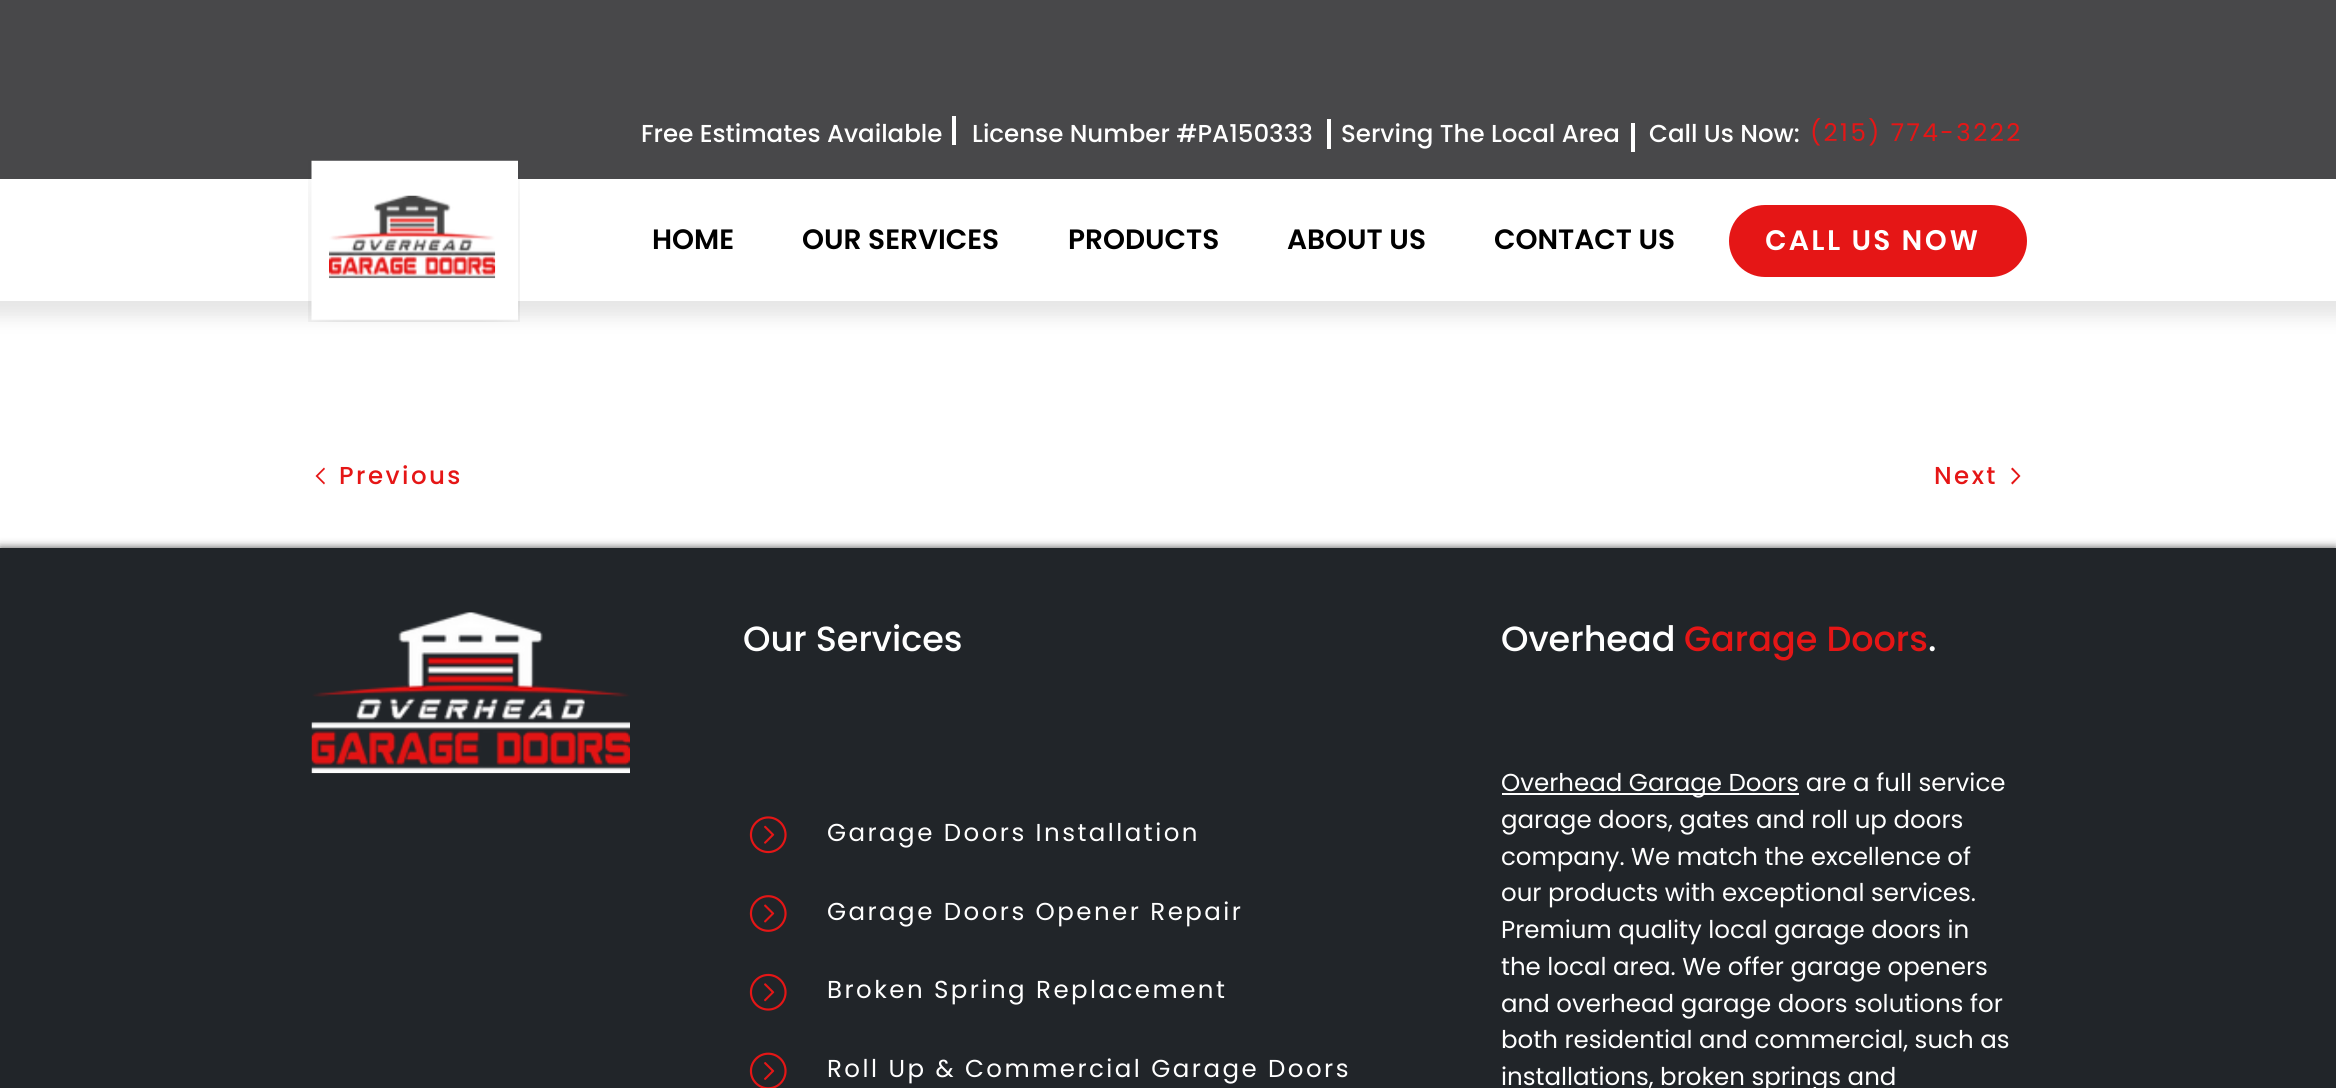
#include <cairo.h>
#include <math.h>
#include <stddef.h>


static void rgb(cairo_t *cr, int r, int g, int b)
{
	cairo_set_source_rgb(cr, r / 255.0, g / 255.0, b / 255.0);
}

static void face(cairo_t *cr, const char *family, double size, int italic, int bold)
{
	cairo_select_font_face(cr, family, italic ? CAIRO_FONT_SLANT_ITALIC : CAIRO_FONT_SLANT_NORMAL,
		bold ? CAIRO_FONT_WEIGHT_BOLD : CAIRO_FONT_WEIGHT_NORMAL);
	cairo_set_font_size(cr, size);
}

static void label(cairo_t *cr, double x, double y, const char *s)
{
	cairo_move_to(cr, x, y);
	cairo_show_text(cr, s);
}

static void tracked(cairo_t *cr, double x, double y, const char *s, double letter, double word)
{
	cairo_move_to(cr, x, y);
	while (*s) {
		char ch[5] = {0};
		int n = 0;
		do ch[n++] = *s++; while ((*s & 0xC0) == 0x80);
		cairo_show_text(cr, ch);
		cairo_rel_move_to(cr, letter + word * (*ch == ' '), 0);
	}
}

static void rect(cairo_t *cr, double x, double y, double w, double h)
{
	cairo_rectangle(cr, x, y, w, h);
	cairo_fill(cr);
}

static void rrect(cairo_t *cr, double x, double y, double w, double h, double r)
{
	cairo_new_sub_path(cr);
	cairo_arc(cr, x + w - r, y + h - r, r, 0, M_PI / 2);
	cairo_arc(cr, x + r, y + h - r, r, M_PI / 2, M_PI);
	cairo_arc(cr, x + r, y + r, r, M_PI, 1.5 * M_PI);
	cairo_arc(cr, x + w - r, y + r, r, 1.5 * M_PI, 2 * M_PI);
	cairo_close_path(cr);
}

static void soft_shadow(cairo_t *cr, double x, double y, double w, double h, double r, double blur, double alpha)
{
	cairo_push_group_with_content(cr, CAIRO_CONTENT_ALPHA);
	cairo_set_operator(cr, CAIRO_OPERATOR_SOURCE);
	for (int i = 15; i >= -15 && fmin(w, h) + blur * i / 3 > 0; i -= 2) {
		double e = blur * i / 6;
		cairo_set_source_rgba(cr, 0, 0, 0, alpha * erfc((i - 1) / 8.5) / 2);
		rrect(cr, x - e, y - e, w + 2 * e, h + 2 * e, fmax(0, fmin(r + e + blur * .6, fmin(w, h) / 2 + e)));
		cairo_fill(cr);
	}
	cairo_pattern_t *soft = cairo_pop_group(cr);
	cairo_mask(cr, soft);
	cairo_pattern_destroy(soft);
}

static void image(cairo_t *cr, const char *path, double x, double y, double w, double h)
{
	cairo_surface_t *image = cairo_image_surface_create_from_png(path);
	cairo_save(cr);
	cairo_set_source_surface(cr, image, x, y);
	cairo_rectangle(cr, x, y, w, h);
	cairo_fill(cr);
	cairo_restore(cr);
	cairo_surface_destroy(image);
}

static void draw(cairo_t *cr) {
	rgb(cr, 255, 255, 255);
	cairo_paint(cr);
	rgb(cr, 0, 0, 0);
	soft_shadow(cr, -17, -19, 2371, 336, 0, 9, 0.1);
	rgb(cr, 255, 255, 255);
	rect(cr, 0, 179, 2336, 122);
	rgb(cr, 72, 72, 74);
	rect(cr, 0, 0, 2336, 179);
	face(cr, "Poppins Medium", 24.5, 0, 0);
	rgb(cr, 255, 255, 255);
	label(cr, 641, 142, "Free Estimates Available");
	rect(cr, 952, 116, 4, 29);
	label(cr, 972, 142, "License Number #PA150333");
	rect(cr, 1327, 119, 4, 30);
	label(cr, 1341, 142, "Serving The Local Area");
	rect(cr, 1631, 123, 4, 29);
	label(cr, 1649, 142, "Call Us Now:");
	face(cr, "Poppins", 24.5, 0, 0);
	rgb(cr, 229, 22, 22);
	tracked(cr, 1810, 141, "(215) 774-3222", 2.45, 0);
	image(cr, "image0.png", 308, 160, 212, 162);
	image(cr, "image1.png", 329, 195, 167, 84);
	face(cr, "Poppins SemiBold", 28, 0, 0);
	rgb(cr, 0, 0, 0);
	label(cr, 652, 249, "HOME");
	label(cr, 802, 249, "OUR SERVICES");
	label(cr, 1068, 249, "PRODUCTS");
	label(cr, 1287, 249, "ABOUT US");
	label(cr, 1494, 249, "CONTACT US");
	rgb(cr, 229, 22, 22);
	rrect(cr, 1729, 205, 298, 72, 36);
	cairo_fill(cr);
	face(cr, "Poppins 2 SemiBold", 28, 0, 0);
	rgb(cr, 255, 255, 255);
	tracked(cr, 1765, 250, "CALL US NOW", 2.75, 0);
	rgb(cr, 229, 22, 22);
	cairo_new_path(cr);
	cairo_move_to(cr, 324, 484.5);
	cairo_line_to(cr, 325, 483);
	cairo_line_to(cr, 318, 476);
	cairo_line_to(cr, 325, 469);
	cairo_line_to(cr, 324, 467.5);
	cairo_line_to(cr, 315.5, 476);
	cairo_close_path(cr);
	cairo_fill(cr);
	face(cr, "Poppins Medium", 24.5, 0, 0);
	tracked(cr, 339, 484, "Previous", 2.45, 0);
	tracked(cr, 1934, 484, "Next", 2.45, 0);
	cairo_new_path(cr);
	cairo_move_to(cr, 2012.5, 467.5);
	cairo_line_to(cr, 2011, 469);
	cairo_line_to(cr, 2018, 476);
	cairo_line_to(cr, 2011, 483);
	cairo_line_to(cr, 2012.5, 484.5);
	cairo_line_to(cr, 2020.5, 476);
	cairo_close_path(cr);
	cairo_fill(cr);
	rgb(cr, 0, 0, 0);
	soft_shadow(cr, 0, 548, 2336, 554, 0, 4.5, 0.7);
	rgb(cr, 33, 37, 41);
	rect(cr, 0, 548, 2336, 540);
	image(cr, "image2.png", 311, 612, 319, 162);
	face(cr, "Poppins Medium", 35, 0, 0);
	rgb(cr, 255, 255, 255);
	label(cr, 743, 651, "Our Services");
	label(cr, 1501, 651, "Overhead");
	rgb(cr, 229, 22, 22);
	label(cr, 1684, 651, "Garage Doors");
	rgb(cr, 255, 255, 255);
	label(cr, 1928, 651, ".");
	image(cr, "image3.png", 749, 816, 38, 38);
	face(cr, "Poppins", 24.5, 0, 0);
	tracked(cr, 827, 841, "Garage Doors Installation", 2.45, 0);
	image(cr, "image4.png", 749, 895, 38, 37);
	tracked(cr, 827, 920, "Garage Doors Opener Repair", 2.45, 0);
	image(cr, "image5.png", 749, 973, 38, 38);
	tracked(cr, 827, 998, "Broken Spring Replacement", 2.45, 0);
	image(cr, "image6.png", 749, 1052, 38, 36);
	tracked(cr, 827, 1077, "Roll Up & Commercial Garage Doors", 2.45, 0);
	rect(cr, 1502, 793, 297, 2);
	label(cr, 1501, 791, "Overhead Garage Doors are a full service");
	label(cr, 1501, 828, "garage doors, gates and roll up doors");
	label(cr, 1501, 865, "company. We match the excellence of");
	label(cr, 1501, 901, "our products with exceptional services.");
	label(cr, 1501, 938, "Premium quality local garage doors in");
	label(cr, 1501, 975, "the local area. We offer garage openers");
	label(cr, 1501, 1012, "and overhead garage doors solutions for");
	label(cr, 1501, 1048, "both residential and commercial, such as");
	label(cr, 1501, 1085, "installations, broken springs and");
}

int main(void) {
	cairo_surface_t *surface = cairo_image_surface_create(CAIRO_FORMAT_RGB24, 2336, 1088);
	cairo_t *cr = cairo_create(surface);
	cairo_font_options_t *options = cairo_font_options_create();
	cairo_font_options_set_hint_metrics(options, CAIRO_HINT_METRICS_OFF);
	cairo_font_options_set_hint_style(options, CAIRO_HINT_STYLE_NONE);
	cairo_set_font_options(cr, options);
	cairo_set_miter_limit(cr, 4);
	draw(cr);
	cairo_surface_write_to_png(surface, "render.png");
	cairo_font_options_destroy(options);
	cairo_destroy(cr);
	cairo_surface_destroy(surface);
	return 0;
}
